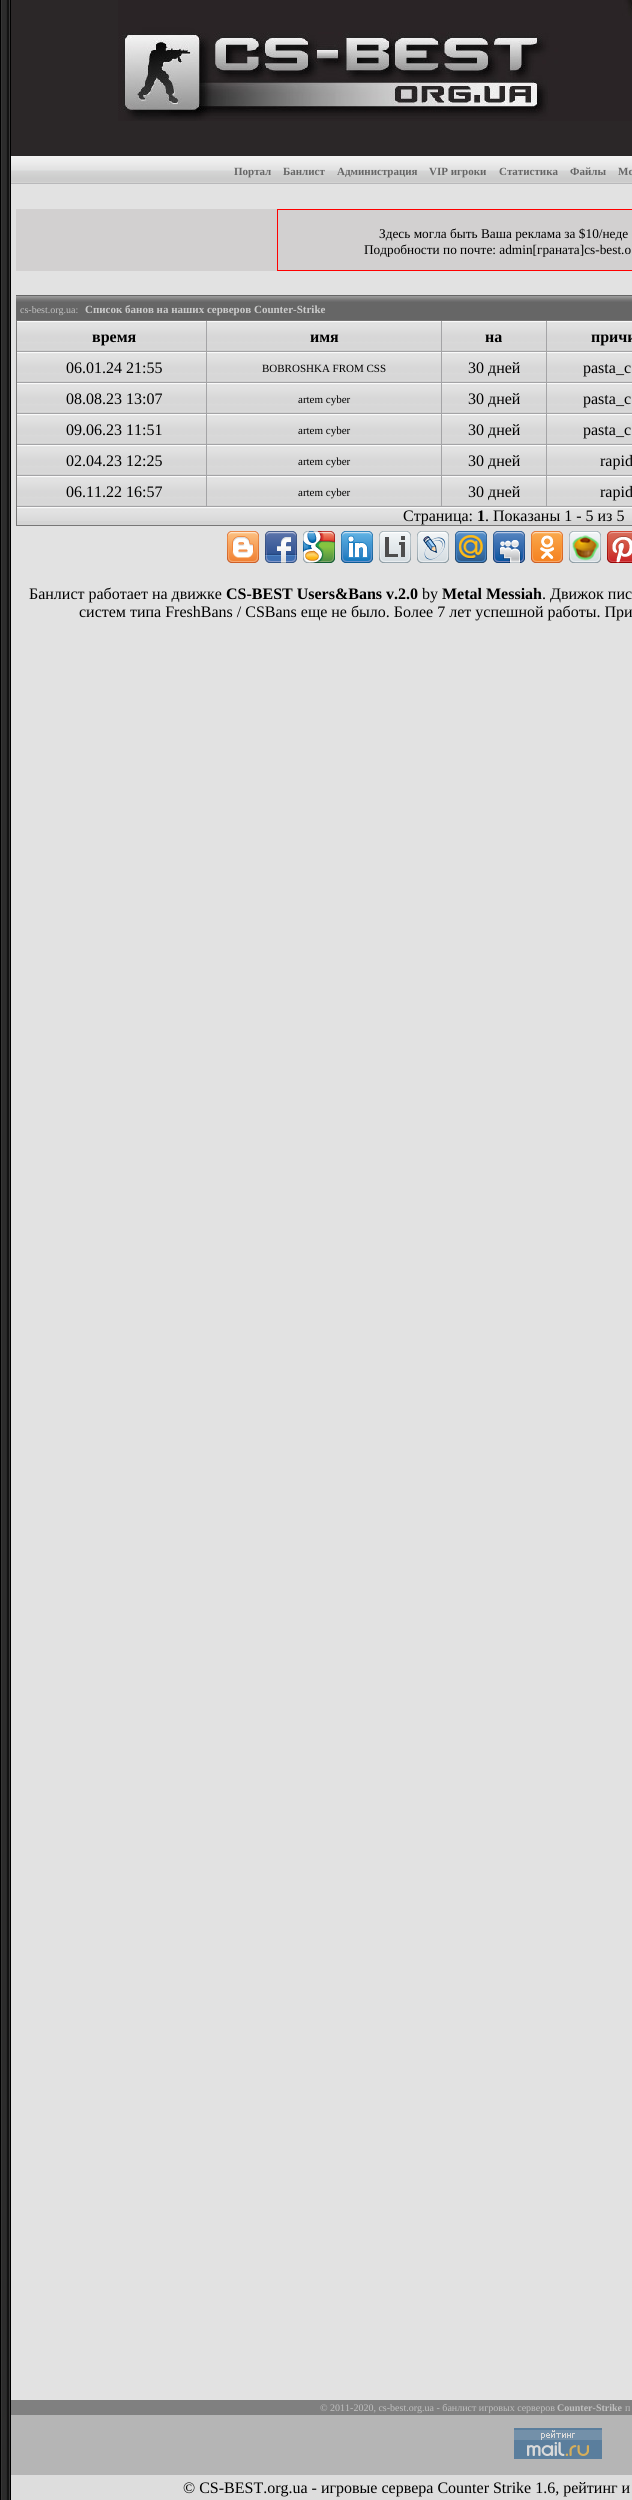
#include <cairo.h>
#include <math.h>
#include <stddef.h>


static void rgb(cairo_t *cr, int r, int g, int b)
{
	cairo_set_source_rgb(cr, r / 255.0, g / 255.0, b / 255.0);
}

static void face(cairo_t *cr, const char *family, double size, int italic, int bold)
{
	cairo_select_font_face(cr, family, italic ? CAIRO_FONT_SLANT_ITALIC : CAIRO_FONT_SLANT_NORMAL,
		bold ? CAIRO_FONT_WEIGHT_BOLD : CAIRO_FONT_WEIGHT_NORMAL);
	cairo_set_font_size(cr, size);
}

static void label(cairo_t *cr, double x, double y, const char *s)
{
	cairo_move_to(cr, x, y);
	cairo_show_text(cr, s);
}

static void rect(cairo_t *cr, double x, double y, double w, double h)
{
	cairo_rectangle(cr, x, y, w, h);
	cairo_fill(cr);
}

static void image(cairo_t *cr, const char *path, double x, double y, double w, double h)
{
	cairo_surface_t *image = cairo_image_surface_create_from_png(path);
	cairo_save(cr);
	cairo_set_source_surface(cr, image, x, y);
	cairo_rectangle(cr, x, y, w, h);
	cairo_fill(cr);
	cairo_restore(cr);
	cairo_surface_destroy(image);
}

static void draw(cairo_t *cr) {
	rgb(cr, 0, 0, 0);
	cairo_paint(cr);
	image(cr, "image0.png", 1, 0, 9, 155);
	rgb(cr, 43, 39, 40);
	rect(cr, 11, 0, 621, 155);
	image(cr, "image1.png", 118, 0, 514, 121);
	image(cr, "image2.png", 1, 155, 9, 2345);
	image(cr, "image3.png", 11, 155, 621, 29);
	face(cr, "Liberation Serif", 11, 0, 1);
	rgb(cr, 102, 102, 102);
	label(cr, 234, 175, "Портал");
	label(cr, 283, 175, "Банлист");
	label(cr, 337, 175, "Администрация");
	label(cr, 429, 175, "VIP игроки");
	label(cr, 499, 175, "Статистика");
	label(cr, 570, 175, "Файлы");
	label(cr, 618, 175, "Мо");
	rgb(cr, 226, 226, 226);
	rect(cr, 11, 184, 621, 2216);
	rgb(cr, 210, 208, 208);
	rect(cr, 16, 209, 616, 62);
	cairo_rectangle(cr, 277.5, 209.5, 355, 61);
	rgb(cr, 255, 0, 0);
	cairo_set_line_width(cr, 1);
	cairo_stroke(cr);
	face(cr, "Liberation Serif", 13.3, 0, 0);
	rgb(cr, 0, 0, 0);
	label(cr, 379, 238, "Здесь могла быть Ваша реклама за $10/неде");
	label(cr, 364, 254, "Подробности по почте: admin[граната]cs-best.o");
	image(cr, "image4.png", 16, 295, 616, 25);
	face(cr, "Liberation Serif", 10, 0, 0);
	rgb(cr, 192, 192, 192);
	label(cr, 20, 313, "cs-best.org.ua:");
	face(cr, "Liberation Serif", 11, 0, 1);
	rgb(cr, 204, 204, 204);
	label(cr, 85, 313, "Список банов на наших серверов Counter-Strike");
	rgb(cr, 212, 212, 212);
	rect(cr, 17, 521, 615, 4);
	image(cr, "image5.png", 17, 321, 615, 200);
	cairo_rectangle(cr, 16.5, 320.5, 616, 205);
	rgb(cr, 119, 118, 118);
	cairo_stroke(cr);
	rgb(cr, 164, 164, 166);
	rect(cr, 206, 321, 1, 186);
	face(cr, "Liberation Serif", 16, 0, 1);
	rgb(cr, 0, 0, 0);
	label(cr, 92, 342, "время");
	rgb(cr, 164, 164, 166);
	rect(cr, 441, 321, 1, 186);
	rgb(cr, 0, 0, 0);
	label(cr, 310, 342, "имя");
	rgb(cr, 164, 164, 166);
	rect(cr, 546, 321, 1, 186);
	rgb(cr, 0, 0, 0);
	label(cr, 485, 342, "на");
	label(cr, 591, 342, "причи");
	face(cr, "Liberation Serif", 16, 0, 0);
	label(cr, 66, 373, "06.01.24 21:55");
	face(cr, "Liberation Serif", 11, 0, 0);
	label(cr, 262, 372, "BOBROSHKA FROM CSS");
	face(cr, "Liberation Serif", 16, 0, 0);
	label(cr, 468, 373, "30 дней");
	label(cr, 583, 373, "pasta_c");
	label(cr, 66, 404, "08.08.23 13:07");
	face(cr, "Liberation Serif", 11, 0, 0);
	label(cr, 298, 403, "artem cyber");
	face(cr, "Liberation Serif", 16, 0, 0);
	label(cr, 468, 404, "30 дней");
	label(cr, 583, 404, "pasta_c");
	label(cr, 66, 435, "09.06.23 11:51");
	face(cr, "Liberation Serif", 11, 0, 0);
	label(cr, 298, 434, "artem cyber");
	face(cr, "Liberation Serif", 16, 0, 0);
	label(cr, 468, 435, "30 дней");
	label(cr, 583, 435, "pasta_c");
	label(cr, 66, 466, "02.04.23 12:25");
	face(cr, "Liberation Serif", 11, 0, 0);
	label(cr, 298, 465, "artem cyber");
	face(cr, "Liberation Serif", 16, 0, 0);
	label(cr, 468, 466, "30 дней");
	label(cr, 600, 466, "rapid");
	label(cr, 66, 497, "06.11.22 16:57");
	face(cr, "Liberation Serif", 11, 0, 0);
	label(cr, 298, 496, "artem cyber");
	face(cr, "Liberation Serif", 16, 0, 0);
	label(cr, 468, 497, "30 дней");
	label(cr, 600, 497, "rapid");
	label(cr, 403, 521, "Страница:");
	face(cr, "Liberation Serif", 16, 0, 1);
	label(cr, 477, 521, "1");
	face(cr, "Liberation Serif", 16, 0, 0);
	label(cr, 485, 521, ". Показаны 1 - 5 из 5");
	image(cr, "image6.png", 227, 531, 32, 32);
	image(cr, "image7.png", 265, 531, 32, 32);
	image(cr, "image8.png", 303, 531, 32, 32);
	image(cr, "image9.png", 341, 531, 32, 32);
	image(cr, "image10.png", 379, 531, 32, 32);
	image(cr, "image11.png", 417, 531, 32, 32);
	image(cr, "image12.png", 455, 531, 32, 32);
	image(cr, "image13.png", 493, 531, 32, 32);
	image(cr, "image14.png", 531, 531, 32, 32);
	image(cr, "image15.png", 569, 531, 32, 32);
	image(cr, "image16.png", 607, 531, 25, 32);
	label(cr, 29, 599, "Банлист работает на движке");
	face(cr, "Liberation Serif", 16, 0, 1);
	label(cr, 226, 599, "CS-BEST Users&Bans v.2.0");
	face(cr, "Liberation Serif", 16, 0, 0);
	label(cr, 422, 599, "by");
	face(cr, "Liberation Serif", 16, 0, 1);
	label(cr, 442, 599, "Metal Messiah");
	face(cr, "Liberation Serif", 16, 0, 0);
	label(cr, 542, 599, ". Движок пис");
	label(cr, 79, 617, "систем типа FreshBans / CSBans еще не было. Более 7 лет успешной работы. При");
	rgb(cr, 128, 128, 128);
	rect(cr, 11, 2400, 621, 15);
	face(cr, "Liberation Serif", 10, 0, 0);
	rgb(cr, 192, 192, 192);
	label(cr, 320, 2411, "© 2011-2020, cs-best.org.ua - банлист игровых серверов");
	face(cr, "Liberation Serif", 10, 0, 1);
	label(cr, 557, 2411, "Counter-Strike");
	face(cr, "Liberation Serif", 10, 0, 0);
	label(cr, 625, 2411, "п");
	rgb(cr, 181, 181, 181);
	rect(cr, 11, 2415, 621, 60);
	image(cr, "image17.png", 514, 2428, 88, 31);
	rgb(cr, 221, 221, 221);
	rect(cr, 11, 2475, 621, 25);
	face(cr, "Liberation Serif", 16, 0, 0);
	rgb(cr, 0, 0, 0);
	label(cr, 183, 2493, "© CS-BEST.org.ua - игровые сервера Counter Strike 1.6, рейтинг и");
}

int main(void) {
	cairo_surface_t *surface = cairo_image_surface_create(CAIRO_FORMAT_RGB24, 632, 2500);
	cairo_t *cr = cairo_create(surface);
	cairo_font_options_t *options = cairo_font_options_create();
	cairo_font_options_set_hint_metrics(options, CAIRO_HINT_METRICS_OFF);
	cairo_font_options_set_hint_style(options, CAIRO_HINT_STYLE_NONE);
	cairo_set_font_options(cr, options);
	cairo_set_miter_limit(cr, 4);
	draw(cr);
	cairo_surface_write_to_png(surface, "render.png");
	cairo_font_options_destroy(options);
	cairo_destroy(cr);
	cairo_surface_destroy(surface);
	return 0;
}
